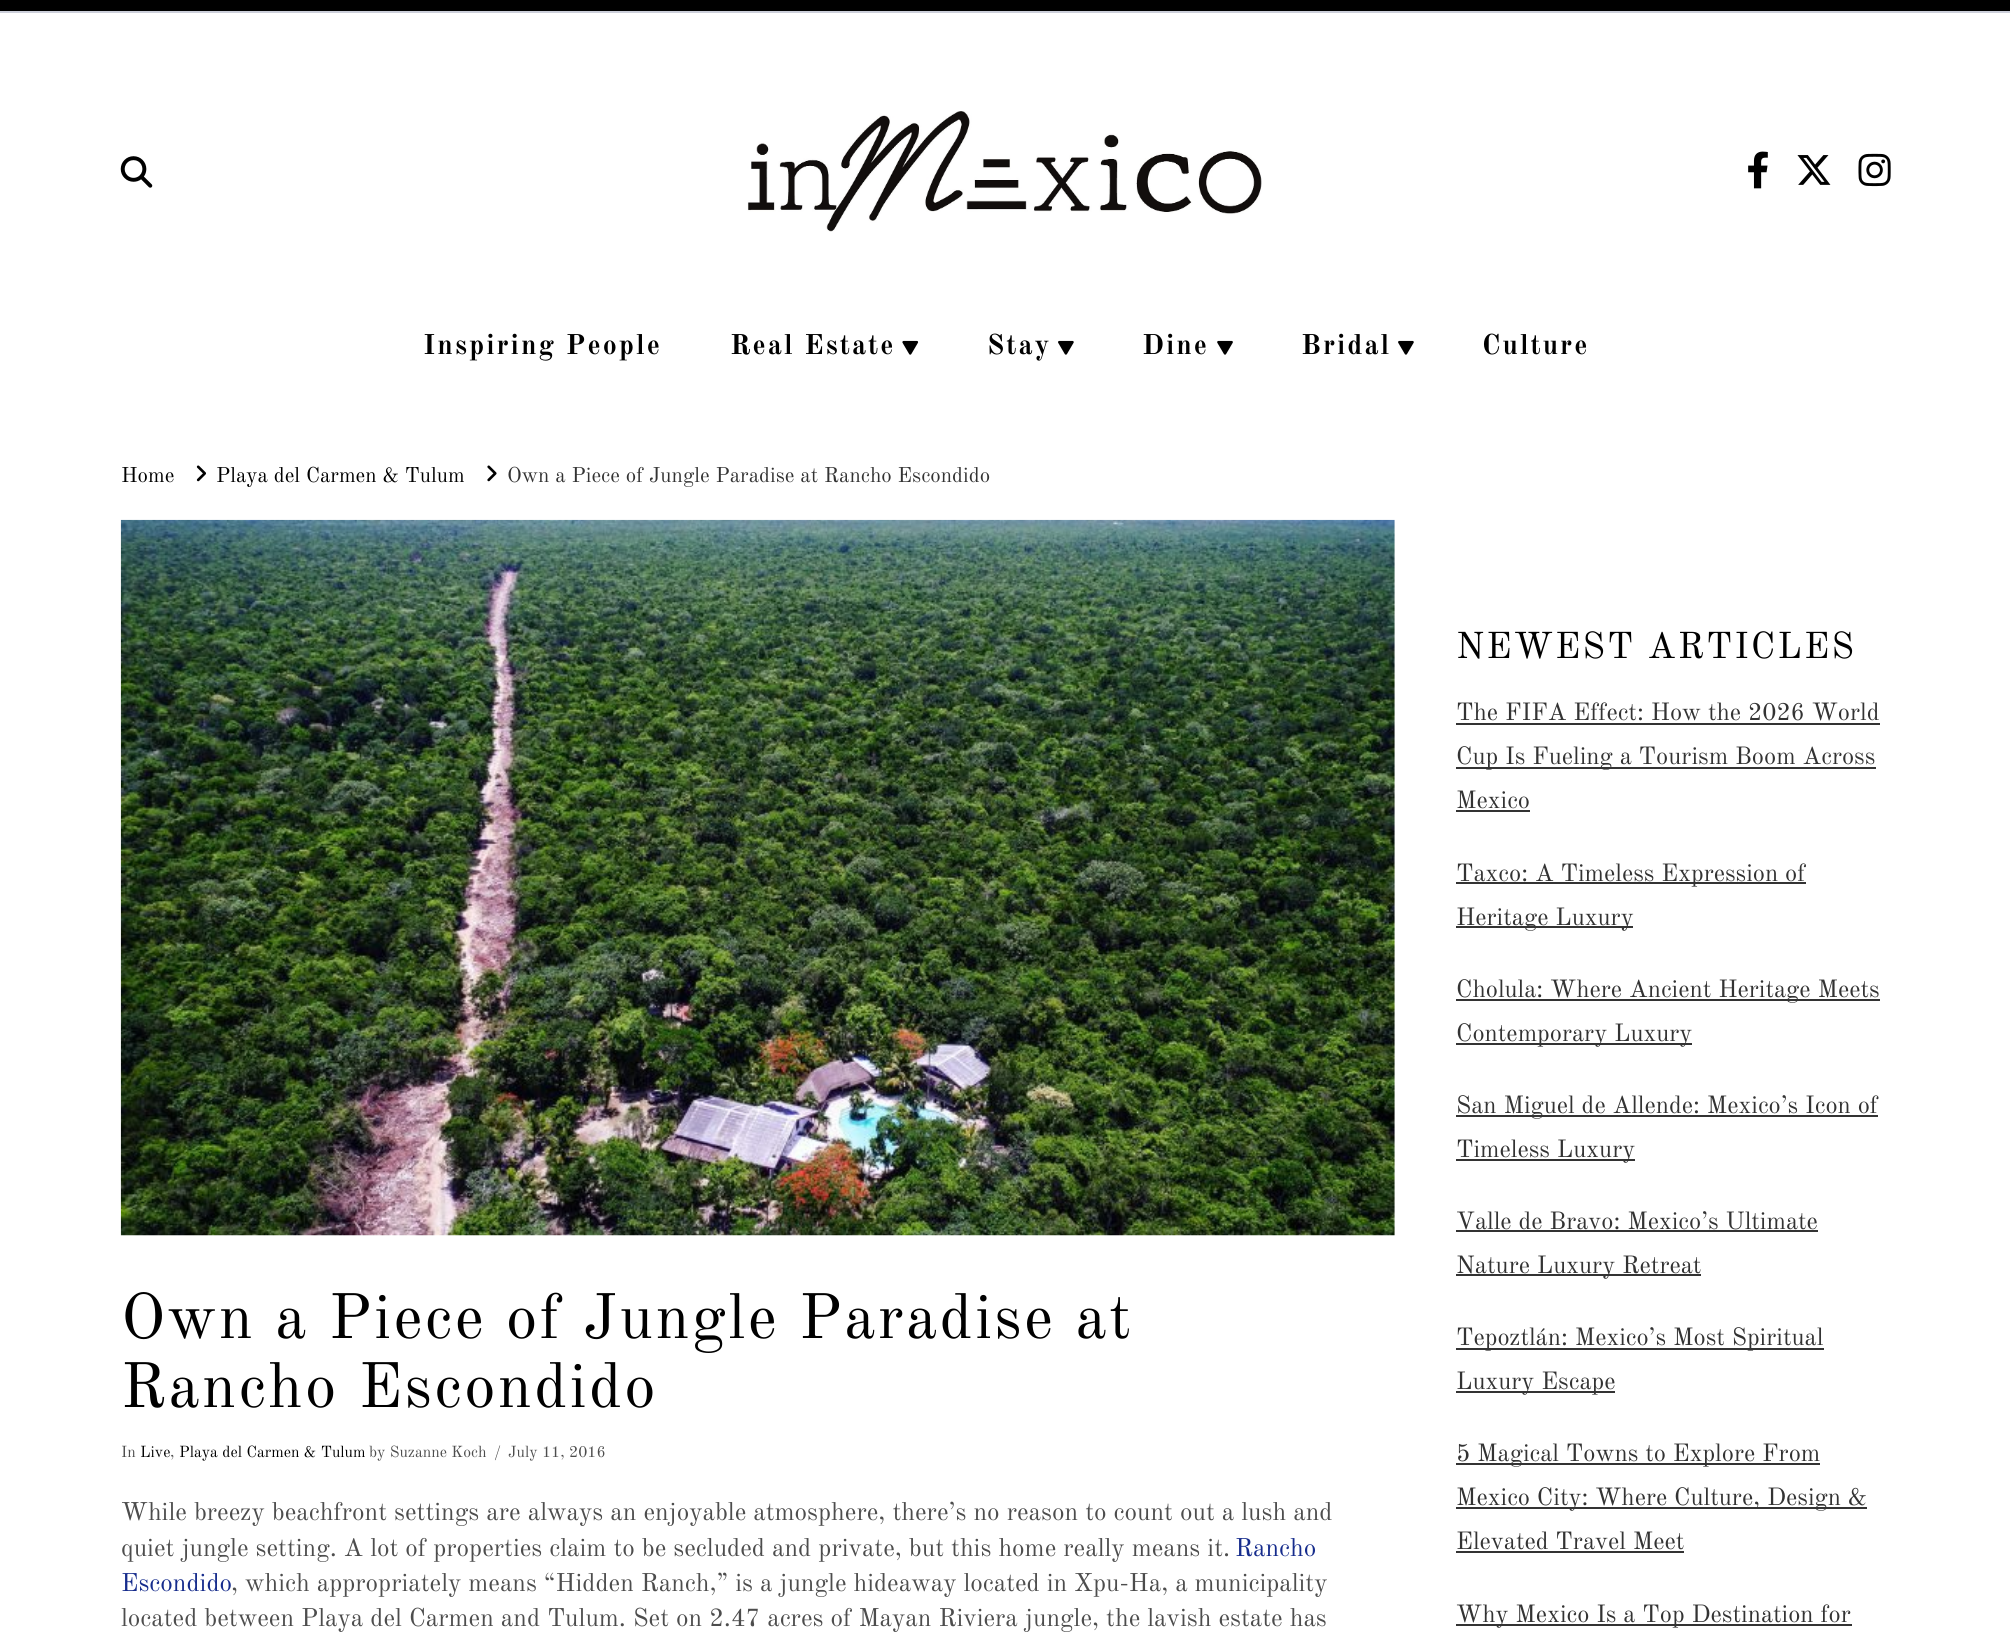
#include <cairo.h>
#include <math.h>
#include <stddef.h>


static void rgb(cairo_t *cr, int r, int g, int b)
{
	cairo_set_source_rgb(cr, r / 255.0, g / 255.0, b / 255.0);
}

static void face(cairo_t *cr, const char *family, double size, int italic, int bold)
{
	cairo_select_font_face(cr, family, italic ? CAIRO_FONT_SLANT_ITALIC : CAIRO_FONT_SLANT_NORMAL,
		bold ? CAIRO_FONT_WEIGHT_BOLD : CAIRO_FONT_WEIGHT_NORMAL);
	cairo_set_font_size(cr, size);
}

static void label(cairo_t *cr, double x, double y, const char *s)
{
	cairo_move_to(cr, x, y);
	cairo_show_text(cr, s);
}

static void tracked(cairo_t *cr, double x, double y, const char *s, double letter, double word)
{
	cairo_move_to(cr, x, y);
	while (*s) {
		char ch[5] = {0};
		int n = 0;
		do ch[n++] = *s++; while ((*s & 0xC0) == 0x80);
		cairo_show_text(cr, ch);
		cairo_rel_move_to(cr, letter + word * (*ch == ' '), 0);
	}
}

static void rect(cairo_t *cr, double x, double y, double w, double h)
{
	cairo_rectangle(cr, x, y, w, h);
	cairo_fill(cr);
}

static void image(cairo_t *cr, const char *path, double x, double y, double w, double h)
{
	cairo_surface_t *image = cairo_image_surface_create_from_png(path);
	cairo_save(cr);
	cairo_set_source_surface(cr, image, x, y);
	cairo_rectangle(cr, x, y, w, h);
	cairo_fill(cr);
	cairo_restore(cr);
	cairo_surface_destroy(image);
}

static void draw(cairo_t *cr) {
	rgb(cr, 255, 255, 255);
	cairo_paint(cr);
	rgb(cr, 0, 0, 0);
	rect(cr, 0, 0, 2010, 11);
	rgb(cr, 204, 207, 218);
	rect(cr, 0, 11, 2010, 2);
	image(cr, "image0.png", 120, 156, 33, 32);
	image(cr, "image1.png", 1748, 151, 20, 38);
	image(cr, "image2.png", 1797, 155, 34, 30);
	image(cr, "image3.png", 1858, 153, 33, 34);
	image(cr, "image4.png", 747, 111, 515, 121);
	face(cr, "Old Standard TT", 28, 0, 1);
	rgb(cr, 0, 0, 0);
	tracked(cr, 423, 354, "Inspiring People", 2, 0);
	tracked(cr, 730, 354, "Real Estate", 2, 0);
	image(cr, "image5.png", 902, 340, 17, 15);
	tracked(cr, 987, 354, "Stay", 2, 0);
	image(cr, "image6.png", 1058, 340, 16, 15);
	tracked(cr, 1142, 354, "Dine", 2, 0);
	image(cr, "image7.png", 1217, 340, 16, 15);
	tracked(cr, 1301, 354, "Bridal", 2, 0);
	image(cr, "image8.png", 1398, 340, 16, 15);
	tracked(cr, 1482, 354, "Culture", 2, 0);
	face(cr, "Old Standard TT", 21, 0, 0);
	label(cr, 121, 482, "Home");
	image(cr, "image9.png", 196, 465, 10, 17);
	label(cr, 216, 482, "Playa del Carmen & Tulum");
	image(cr, "image10.png", 487, 465, 10, 17);
	rgb(cr, 51, 51, 51);
	label(cr, 507, 482, "Own a Piece of Jungle Paradise at Rancho Escondido");
	image(cr, "image11.png", 120, 519, 1275, 717);
	face(cr, "Old Standard TT", 63, 0, 0);
	rgb(cr, 0, 0, 0);
	tracked(cr, 121, 1338, "Own a Piece of Jungle Paradise at", 2.4, 0);
	tracked(cr, 121, 1407, "Rancho Escondido", 2.4, 0);
	face(cr, "Old Standard TT", 15.75, 0, 0);
	rgb(cr, 77, 77, 77);
	label(cr, 121, 1457, "In");
	rgb(cr, 0, 0, 0);
	label(cr, 140, 1457, "Live");
	rgb(cr, 77, 77, 77);
	label(cr, 170, 1457, ",");
	rgb(cr, 0, 0, 0);
	label(cr, 179, 1457, "Playa del Carmen & Tulum");
	rgb(cr, 77, 77, 77);
	label(cr, 369, 1457, "by Suzanne Koch");
	label(cr, 494, 1457, "/");
	label(cr, 508, 1457, "July 11, 2016");
	face(cr, "Old Standard TT", 25.2, 0, 0);
	label(cr, 121, 1520, "While breezy beachfront settings are always an enjoyable atmosphere, there’s no reason to count out a lush and");
	label(cr, 121, 1556, "quiet jungle setting. A lot of properties claim to be secluded and private, but this home really means it.");
	rgb(cr, 22, 44, 140);
	label(cr, 1235, 1556, "Rancho");
	label(cr, 121, 1591, "Escondido");
	rgb(cr, 77, 77, 77);
	tracked(cr, 231, 1591, ", which appropriately means “Hidden Ranch,” is a jungle hideaway located in Xpu-Ha, a municipality", 0, -0.1);
	label(cr, 121, 1626, "located between Playa del Carmen and Tulum. Set on 2.47 acres of Mayan Riviera jungle, the lavish estate has");
	face(cr, "Old Standard TT", 36.75, 0, 0);
	rgb(cr, 0, 0, 0);
	tracked(cr, 1456, 658, "NEWEST ARTICLES", 2, 0);
	face(cr, "Old Standard TT", 24.5, 0, 0);
	rgb(cr, 51, 51, 51);
	label(cr, 1456, 720, "The FIFA Effect: How the 2026 World");
	rect(cr, 1456, 723, 424, 2);
	rect(cr, 1456, 767, 420, 2);
	label(cr, 1456, 764, "Cup Is Fueling a Tourism Boom Across");
	label(cr, 1456, 808, "Mexico");
	rect(cr, 1456, 810, 74, 2);
	rect(cr, 1456, 882, 350, 2);
	label(cr, 1456, 881, "Taxco: A Timeless Expression of");
	rect(cr, 1456, 926, 177, 2);
	label(cr, 1456, 925, "Heritage Luxury");
	rect(cr, 1456, 999, 424, 2);
	label(cr, 1456, 997, "Cholula: Where Ancient Heritage Meets");
	rect(cr, 1456, 1043, 236, 2);
	label(cr, 1456, 1041, "Contemporary Luxury");
	rect(cr, 1456, 1115, 422, 2);
	label(cr, 1456, 1113, "San Miguel de Allende: Mexico’s Icon of");
	rect(cr, 1456, 1159, 179, 2);
	label(cr, 1456, 1157, "Timeless Luxury");
	label(cr, 1456, 1229, "Valle de Bravo: Mexico’s Ultimate");
	rect(cr, 1456, 1230, 362, 2);
	rect(cr, 1456, 1274, 245, 2);
	label(cr, 1456, 1273, "Nature Luxury Retreat");
	rect(cr, 1456, 1348, 368, 2);
	label(cr, 1456, 1345, "Tepoztlán: Mexico’s Most Spiritual");
	rect(cr, 1456, 1391, 159, 2);
	label(cr, 1456, 1389, "Luxury Escape");
	rect(cr, 1456, 1463, 364, 2);
	label(cr, 1456, 1461, "5 Magical Towns to Explore From");
	rect(cr, 1456, 1507, 411, 2);
	label(cr, 1456, 1505, "Mexico City: Where Culture, Design &");
	label(cr, 1456, 1549, "Elevated Travel Meet");
	rect(cr, 1456, 1551, 228, 2);
	rect(cr, 1456, 1624, 396, 2);
	label(cr, 1456, 1622, "Why Mexico Is a Top Destination for");
}

int main(void) {
	cairo_surface_t *surface = cairo_image_surface_create(CAIRO_FORMAT_RGB24, 2010, 1636);
	cairo_t *cr = cairo_create(surface);
	cairo_font_options_t *options = cairo_font_options_create();
	cairo_font_options_set_hint_metrics(options, CAIRO_HINT_METRICS_OFF);
	cairo_font_options_set_hint_style(options, CAIRO_HINT_STYLE_NONE);
	cairo_set_font_options(cr, options);
	cairo_set_miter_limit(cr, 4);
	draw(cr);
	cairo_surface_write_to_png(surface, "render.png");
	cairo_font_options_destroy(options);
	cairo_destroy(cr);
	cairo_surface_destroy(surface);
	return 0;
}
